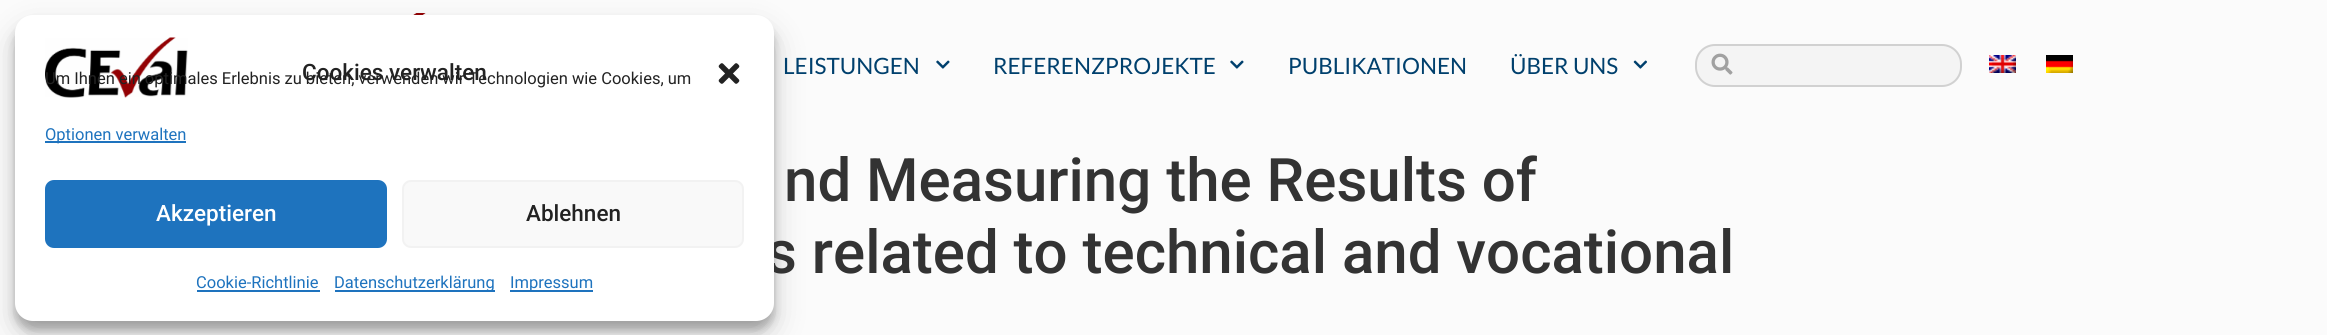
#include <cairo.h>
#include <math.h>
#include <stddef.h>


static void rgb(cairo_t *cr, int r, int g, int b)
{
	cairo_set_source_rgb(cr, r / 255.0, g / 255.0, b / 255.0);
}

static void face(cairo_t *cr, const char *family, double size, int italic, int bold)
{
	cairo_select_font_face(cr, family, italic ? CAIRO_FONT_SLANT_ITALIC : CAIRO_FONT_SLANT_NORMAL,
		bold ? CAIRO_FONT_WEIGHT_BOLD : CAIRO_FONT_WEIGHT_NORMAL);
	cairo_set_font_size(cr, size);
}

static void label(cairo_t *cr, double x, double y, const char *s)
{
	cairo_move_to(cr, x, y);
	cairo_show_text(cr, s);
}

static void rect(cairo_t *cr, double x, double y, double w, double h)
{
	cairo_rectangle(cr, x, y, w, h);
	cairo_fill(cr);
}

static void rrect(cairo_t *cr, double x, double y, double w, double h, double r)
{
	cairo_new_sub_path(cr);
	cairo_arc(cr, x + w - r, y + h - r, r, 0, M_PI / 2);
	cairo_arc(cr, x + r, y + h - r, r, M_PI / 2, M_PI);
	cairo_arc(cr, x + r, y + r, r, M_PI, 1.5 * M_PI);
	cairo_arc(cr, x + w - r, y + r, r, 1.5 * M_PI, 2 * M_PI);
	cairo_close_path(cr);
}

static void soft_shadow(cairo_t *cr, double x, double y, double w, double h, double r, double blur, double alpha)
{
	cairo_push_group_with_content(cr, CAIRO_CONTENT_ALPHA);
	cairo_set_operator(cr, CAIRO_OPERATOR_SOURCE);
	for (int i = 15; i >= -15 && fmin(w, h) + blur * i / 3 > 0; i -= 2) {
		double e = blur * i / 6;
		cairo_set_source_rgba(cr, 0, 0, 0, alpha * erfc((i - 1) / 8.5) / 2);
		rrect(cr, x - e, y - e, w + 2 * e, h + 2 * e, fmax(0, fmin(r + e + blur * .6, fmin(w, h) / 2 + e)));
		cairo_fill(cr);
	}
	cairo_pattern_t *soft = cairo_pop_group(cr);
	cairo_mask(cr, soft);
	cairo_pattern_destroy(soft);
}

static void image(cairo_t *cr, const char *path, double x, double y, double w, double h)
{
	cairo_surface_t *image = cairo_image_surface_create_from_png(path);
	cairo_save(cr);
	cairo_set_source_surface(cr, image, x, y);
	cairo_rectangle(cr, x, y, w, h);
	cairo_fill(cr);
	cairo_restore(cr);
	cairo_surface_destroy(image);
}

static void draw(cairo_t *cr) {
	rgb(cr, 251, 251, 251);
	cairo_paint(cr);
	image(cr, "image2.png", 413, 13, 13, 2);
	rgb(cr, 0, 0, 0);
	soft_shadow(cr, 15, 24, 759, 306, 18, 4.5, 0.23);
	soft_shadow(cr, 15, 30, 759, 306, 18, 15, 0.19);
	face(cr, "Roboto Medium", 60, 0, 0);
	rgb(cr, 51, 51, 51);
	label(cr, 766, 273, "s related to technical and vocational");
	rgb(cr, 255, 255, 255);
	rrect(cr, 15, 15, 759, 306, 18);
	cairo_fill(cr);
	image(cr, "image0.png", 45, 37, 143, 61);
	face(cr, "Roboto Medium", 22.5, 0, 0);
	rgb(cr, 34, 34, 34);
	label(cr, 302, 80, "Cookies verwalten");
	image(cr, "image1.png", 718, 63, 22, 21);
	face(cr, "Roboto", 16.5, 0, 0);
	label(cr, 45, 84, "Um Ihnen ein optimales Erlebnis zu bieten, verwenden wir Technologien wie Cookies, um");
	rgb(cr, 30, 115, 190);
	rect(cr, 45, 141, 141, 2);
	label(cr, 45, 140, "Optionen verwalten");
	rrect(cr, 46, 181, 340, 66, 8);
	cairo_fill_preserve(cr);
	cairo_stroke(cr);
	face(cr, "Roboto Medium", 22.5, 0, 0);
	rgb(cr, 255, 255, 255);
	label(cr, 156, 221, "Akzeptieren");
	rgb(cr, 249, 249, 249);
	rrect(cr, 403, 181, 340, 66, 8);
	cairo_fill_preserve(cr);
	rgb(cr, 242, 242, 242);
	cairo_stroke(cr);
	rgb(cr, 34, 34, 34);
	label(cr, 526, 221, "Ablehnen");
	face(cr, "Roboto", 16.5, 0, 0);
	rgb(cr, 30, 115, 190);
	label(cr, 196, 288, "Cookie-Richtlinie");
	rect(cr, 197, 290, 123, 2);
	rect(cr, 335, 290, 160, 2);
	label(cr, 334, 288, "Datenschutzerklärung");
	rect(cr, 510, 290, 83, 2);
	label(cr, 510, 288, "Impressum");
	face(cr, "Lato", 22.5, 0, 0);
	rgb(cr, 0, 64, 109);
	label(cr, 783, 74, "LEISTUNGEN");
	image(cr, "image3.png", 936, 60, 14, 9);
	label(cr, 993, 74, "REFERENZPROJEKTE");
	image(cr, "image3.png", 1230, 60, 14, 9);
	label(cr, 1288, 74, "PUBLIKATIONEN");
	label(cr, 1510, 74, "ÜBER UNS");
	image(cr, "image4.png", 1633, 60, 14, 9);
	rgb(cr, 244, 244, 244);
	rrect(cr, 1696, 45, 265, 41, 19);
	cairo_fill_preserve(cr);
	rgb(cr, 209, 209, 209);
	cairo_stroke(cr);
	image(cr, "image5.png", 1711, 53, 22, 22);
	image(cr, "image6.png", 1989, 55, 27, 18);
	image(cr, "image7.png", 2046, 55, 27, 18);
	face(cr, "Roboto Medium", 60, 0, 0);
	rgb(cr, 51, 51, 51);
	label(cr, 784, 201, "nd Measuring the Results of");
}

int main(void) {
	cairo_surface_t *surface = cairo_image_surface_create(CAIRO_FORMAT_RGB24, 2327, 335);
	cairo_t *cr = cairo_create(surface);
	cairo_font_options_t *options = cairo_font_options_create();
	cairo_font_options_set_hint_metrics(options, CAIRO_HINT_METRICS_OFF);
	cairo_font_options_set_hint_style(options, CAIRO_HINT_STYLE_NONE);
	cairo_set_font_options(cr, options);
	cairo_set_miter_limit(cr, 4);
	draw(cr);
	cairo_surface_write_to_png(surface, "render.png");
	cairo_font_options_destroy(options);
	cairo_destroy(cr);
	cairo_surface_destroy(surface);
	return 0;
}
